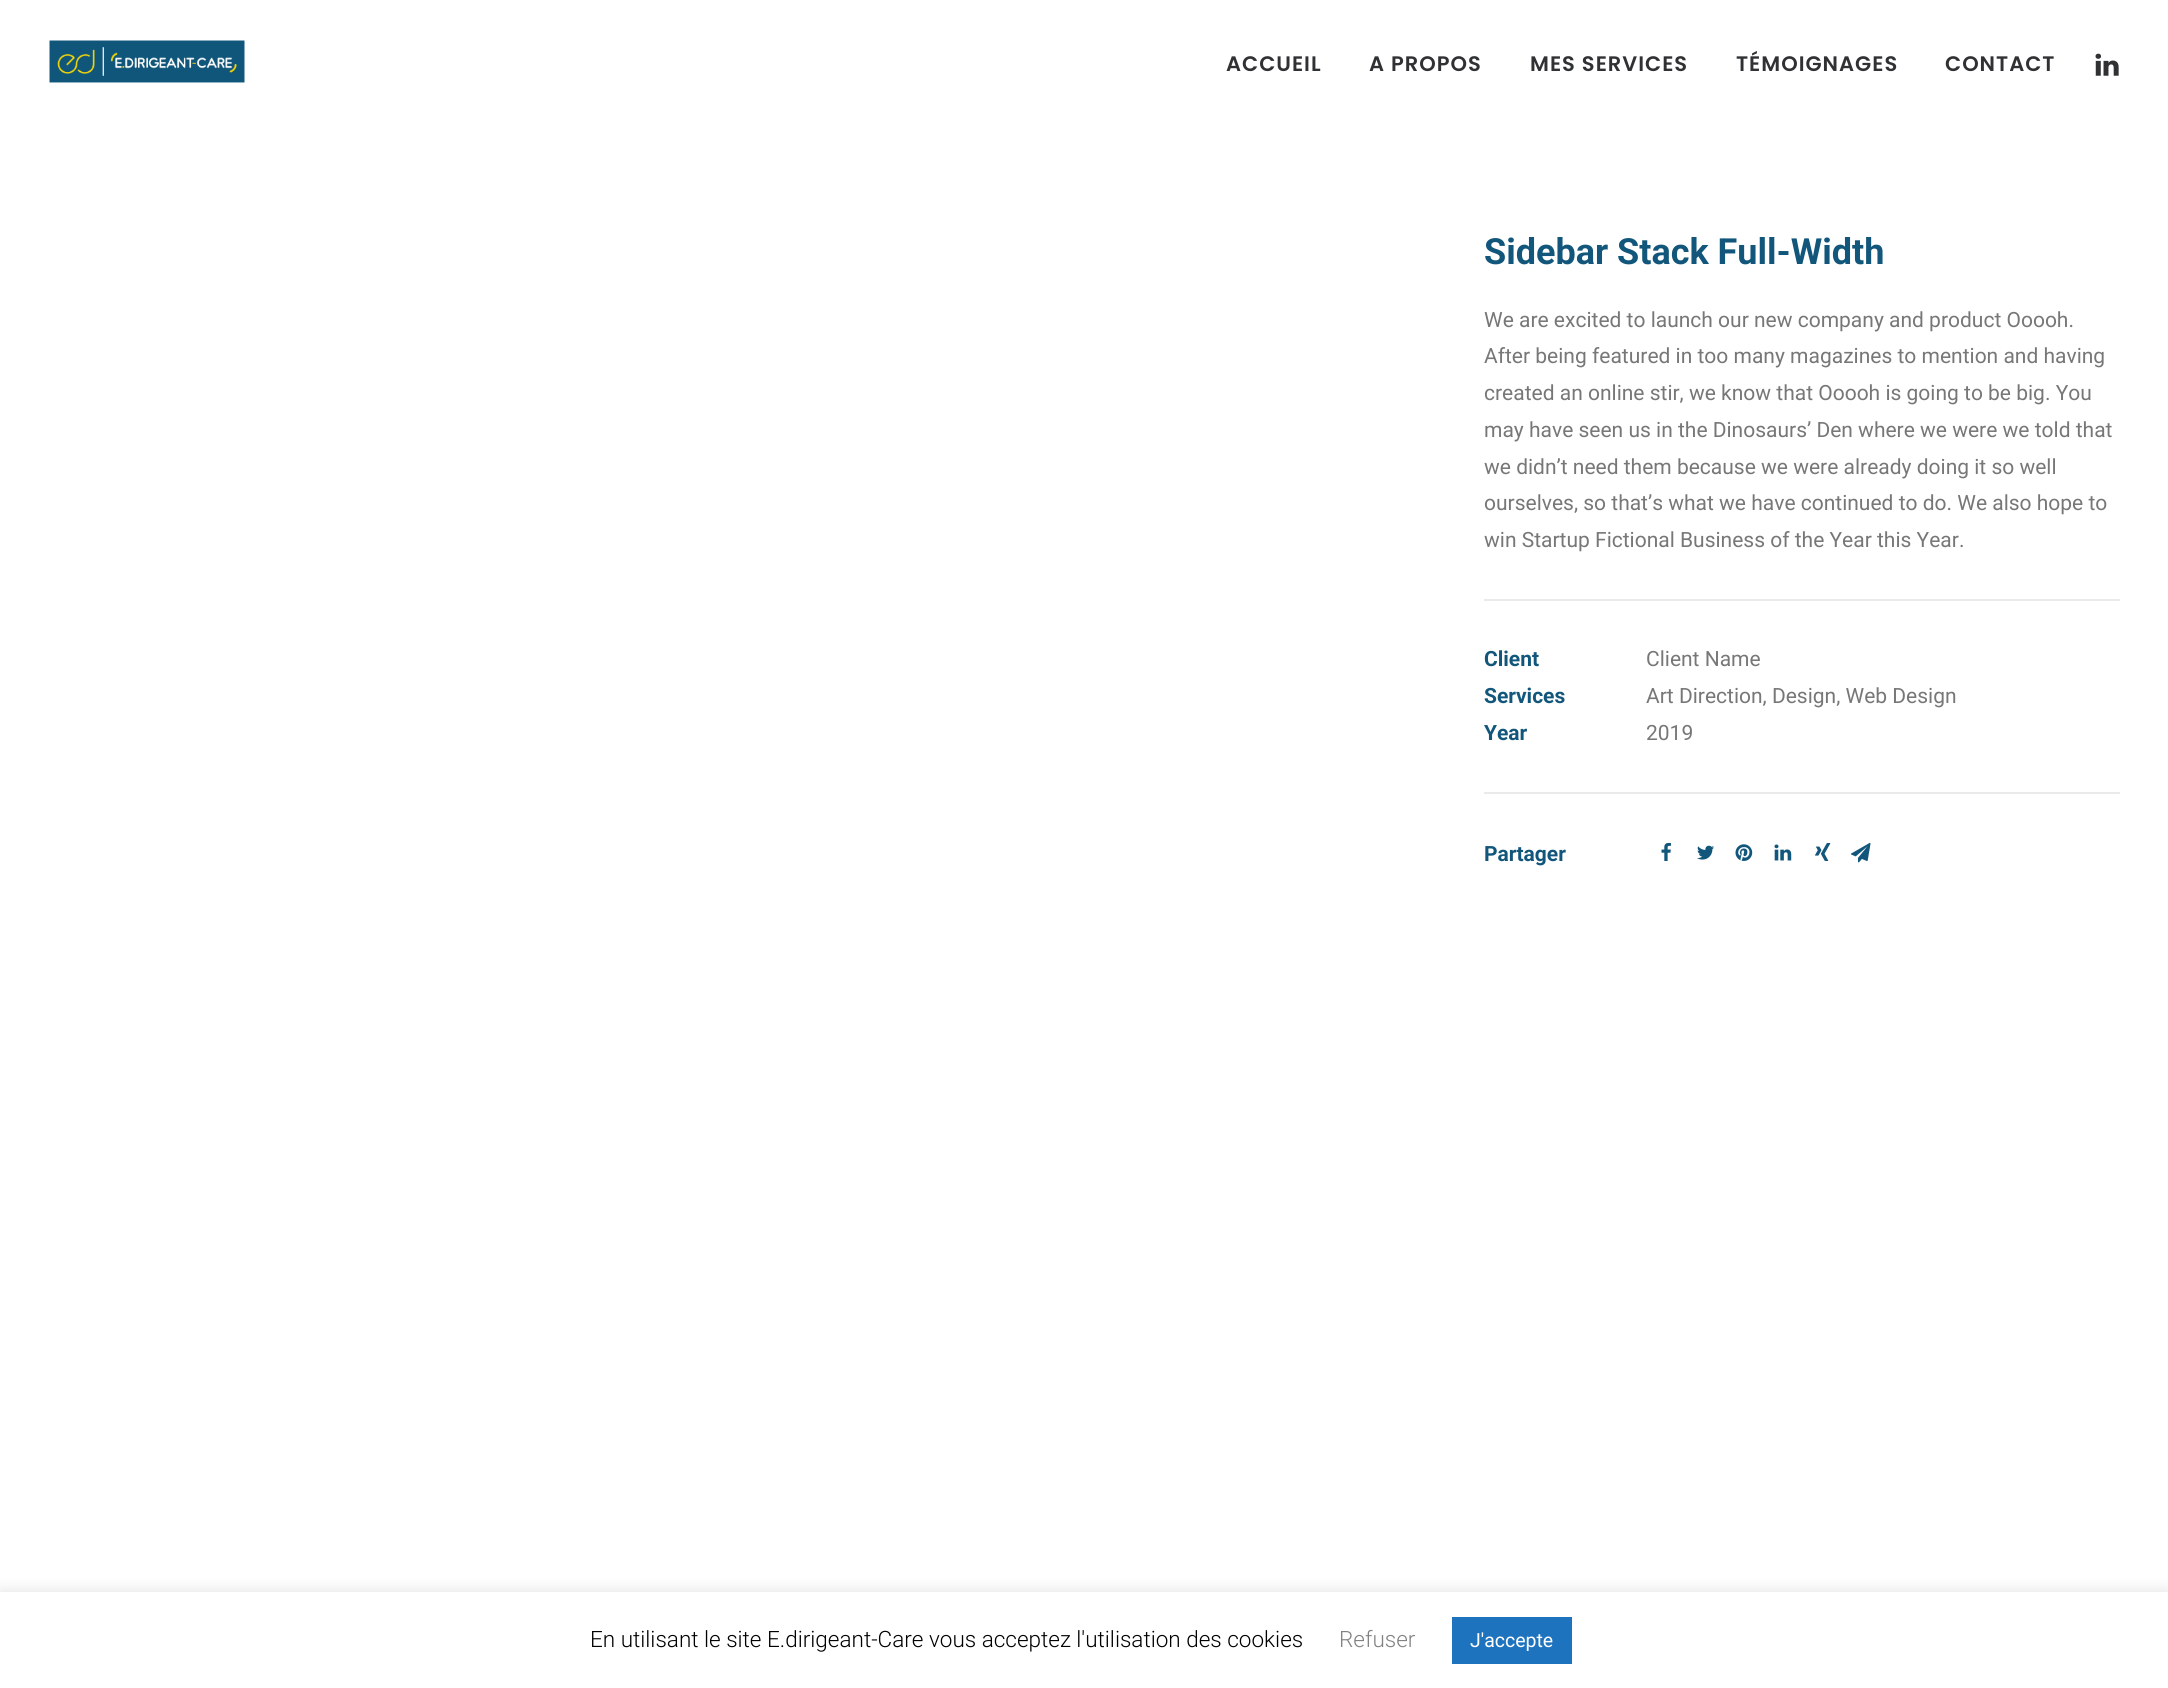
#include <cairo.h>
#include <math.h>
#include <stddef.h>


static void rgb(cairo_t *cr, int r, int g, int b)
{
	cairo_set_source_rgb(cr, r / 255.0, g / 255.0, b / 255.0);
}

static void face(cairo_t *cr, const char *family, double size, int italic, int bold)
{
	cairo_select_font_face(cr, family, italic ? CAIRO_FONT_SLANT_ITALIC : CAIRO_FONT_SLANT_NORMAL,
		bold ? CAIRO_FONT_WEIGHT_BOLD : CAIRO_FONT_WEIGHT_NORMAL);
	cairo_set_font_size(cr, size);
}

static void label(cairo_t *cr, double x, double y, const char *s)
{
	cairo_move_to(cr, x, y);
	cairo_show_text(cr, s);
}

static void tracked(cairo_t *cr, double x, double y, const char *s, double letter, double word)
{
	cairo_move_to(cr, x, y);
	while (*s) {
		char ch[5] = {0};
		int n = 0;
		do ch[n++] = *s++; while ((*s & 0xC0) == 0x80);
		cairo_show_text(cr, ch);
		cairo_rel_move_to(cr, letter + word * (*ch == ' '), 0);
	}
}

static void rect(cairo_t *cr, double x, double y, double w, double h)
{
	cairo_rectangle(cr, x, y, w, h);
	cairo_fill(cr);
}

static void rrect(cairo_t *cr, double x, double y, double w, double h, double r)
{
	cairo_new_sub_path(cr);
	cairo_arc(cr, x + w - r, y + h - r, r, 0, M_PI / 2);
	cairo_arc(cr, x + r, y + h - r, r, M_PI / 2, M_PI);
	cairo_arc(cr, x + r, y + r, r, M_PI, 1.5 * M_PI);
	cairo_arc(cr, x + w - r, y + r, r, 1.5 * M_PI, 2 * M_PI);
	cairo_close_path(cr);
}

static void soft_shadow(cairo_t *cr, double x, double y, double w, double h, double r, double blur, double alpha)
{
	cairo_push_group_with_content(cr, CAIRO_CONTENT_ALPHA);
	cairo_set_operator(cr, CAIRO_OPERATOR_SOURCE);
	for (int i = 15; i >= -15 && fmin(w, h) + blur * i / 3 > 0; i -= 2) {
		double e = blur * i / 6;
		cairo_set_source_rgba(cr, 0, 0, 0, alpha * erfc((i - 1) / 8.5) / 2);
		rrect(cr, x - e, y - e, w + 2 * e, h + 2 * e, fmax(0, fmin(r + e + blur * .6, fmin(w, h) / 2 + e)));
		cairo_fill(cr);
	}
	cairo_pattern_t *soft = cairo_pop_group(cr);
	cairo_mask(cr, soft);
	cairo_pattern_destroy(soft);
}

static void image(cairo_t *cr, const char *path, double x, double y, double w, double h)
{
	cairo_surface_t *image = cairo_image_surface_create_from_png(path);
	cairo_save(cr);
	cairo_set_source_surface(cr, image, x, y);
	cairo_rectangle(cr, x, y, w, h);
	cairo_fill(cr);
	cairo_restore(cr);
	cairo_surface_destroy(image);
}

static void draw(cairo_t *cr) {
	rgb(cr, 255, 255, 255);
	cairo_paint(cr);
	image(cr, "image0.png", 49, 40, 196, 43);
	face(cr, "Poppins SemiBold", 21, 0, 0);
	rgb(cr, 48, 49, 51);
	tracked(cr, 1226, 71, "ACCUEIL", 1, 0);
	tracked(cr, 1369, 71, "A PROPOS", 1, 0);
	tracked(cr, 1530, 71, "MES SERVICES", 1, 0);
	tracked(cr, 1736, 71, "TÉMOIGNAGES", 1, 0);
	tracked(cr, 1945, 71, "CONTACT", 1, 0);
	image(cr, "image1.png", 2095, 53, 24, 23);
	face(cr, "Roboto", 36, 0, 1);
	rgb(cr, 18, 87, 123);
	label(cr, 1484, 264, "Sidebar Stack Full-Width");
	face(cr, "Roboto", 21, 0, 0);
	rgb(cr, 119, 119, 119);
	label(cr, 1484, 327, "We are excited to launch our new company and product Ooooh.");
	label(cr, 1484, 363, "After being featured in too many magazines to mention and having");
	label(cr, 1484, 400, "created an online stir, we know that Ooooh is going to be big. You");
	label(cr, 1484, 437, "may have seen us in the Dinosaurs’ Den where we were we told that");
	label(cr, 1484, 474, "we didn’t need them because we were already doing it so well");
	label(cr, 1484, 510, "ourselves, so that’s what we have continued to do. We also hope to");
	label(cr, 1484, 547, "win Startup Fictional Business of the Year this Year.");
	rgb(cr, 234, 234, 234);
	rect(cr, 1484, 599, 636, 2);
	face(cr, "Roboto", 21, 0, 1);
	rgb(cr, 18, 87, 123);
	label(cr, 1484, 666, "Client");
	face(cr, "Roboto", 21, 0, 0);
	rgb(cr, 119, 119, 119);
	label(cr, 1646, 666, "Client Name");
	face(cr, "Roboto", 21, 0, 1);
	rgb(cr, 18, 87, 123);
	label(cr, 1484, 703, "Services");
	face(cr, "Roboto", 21, 0, 0);
	rgb(cr, 119, 119, 119);
	label(cr, 1646, 703, "Art Direction, Design, Web Design");
	face(cr, "Roboto", 21, 0, 1);
	rgb(cr, 18, 87, 123);
	label(cr, 1484, 740, "Year");
	face(cr, "Roboto", 21, 0, 0);
	rgb(cr, 119, 119, 119);
	label(cr, 1646, 740, "2019");
	rgb(cr, 234, 234, 234);
	rect(cr, 1484, 792, 636, 2);
	face(cr, "Roboto", 21, 0, 1);
	rgb(cr, 18, 87, 123);
	label(cr, 1484, 861, "Partager");
	image(cr, "image2.png", 1661, 842, 10, 19);
	image(cr, "image3.png", 1697, 845, 17, 15);
	image(cr, "image4.png", 1735, 844, 18, 17);
	image(cr, "image5.png", 1774, 844, 18, 17);
	image(cr, "image6.png", 1815, 843, 16, 18);
	image(cr, "image7.png", 1851, 842, 20, 21);
	cairo_save(cr);
	cairo_rectangle(cr, 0, 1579, 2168, 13);
	cairo_clip(cr);
	rgb(cr, 172, 171, 171);
	soft_shadow(cr, 0, 1590, 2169, 98, 0, 7.5, 0.3);
	cairo_restore(cr);
	face(cr, "Roboto Light", 22.5, 0, 0);
	rgb(cr, 0, 0, 0);
	label(cr, 590, 1647, "En utilisant le site E.dirigeant-Care vous acceptez l'utilisation des cookies");
	rgb(cr, 130, 130, 130);
	label(cr, 1339, 1647, "Refuser");
	rgb(cr, 30, 115, 190);
	rect(cr, 1452, 1617, 120, 47);
	face(cr, "Roboto", 19.5, 0, 0);
	rgb(cr, 255, 255, 255);
	label(cr, 1470, 1647, "J'accepte");
}

int main(void) {
	cairo_surface_t *surface = cairo_image_surface_create(CAIRO_FORMAT_RGB24, 2168, 1688);
	cairo_t *cr = cairo_create(surface);
	cairo_font_options_t *options = cairo_font_options_create();
	cairo_font_options_set_hint_metrics(options, CAIRO_HINT_METRICS_OFF);
	cairo_font_options_set_hint_style(options, CAIRO_HINT_STYLE_NONE);
	cairo_set_font_options(cr, options);
	cairo_set_miter_limit(cr, 4);
	draw(cr);
	cairo_surface_write_to_png(surface, "render.png");
	cairo_font_options_destroy(options);
	cairo_destroy(cr);
	cairo_surface_destroy(surface);
	return 0;
}
